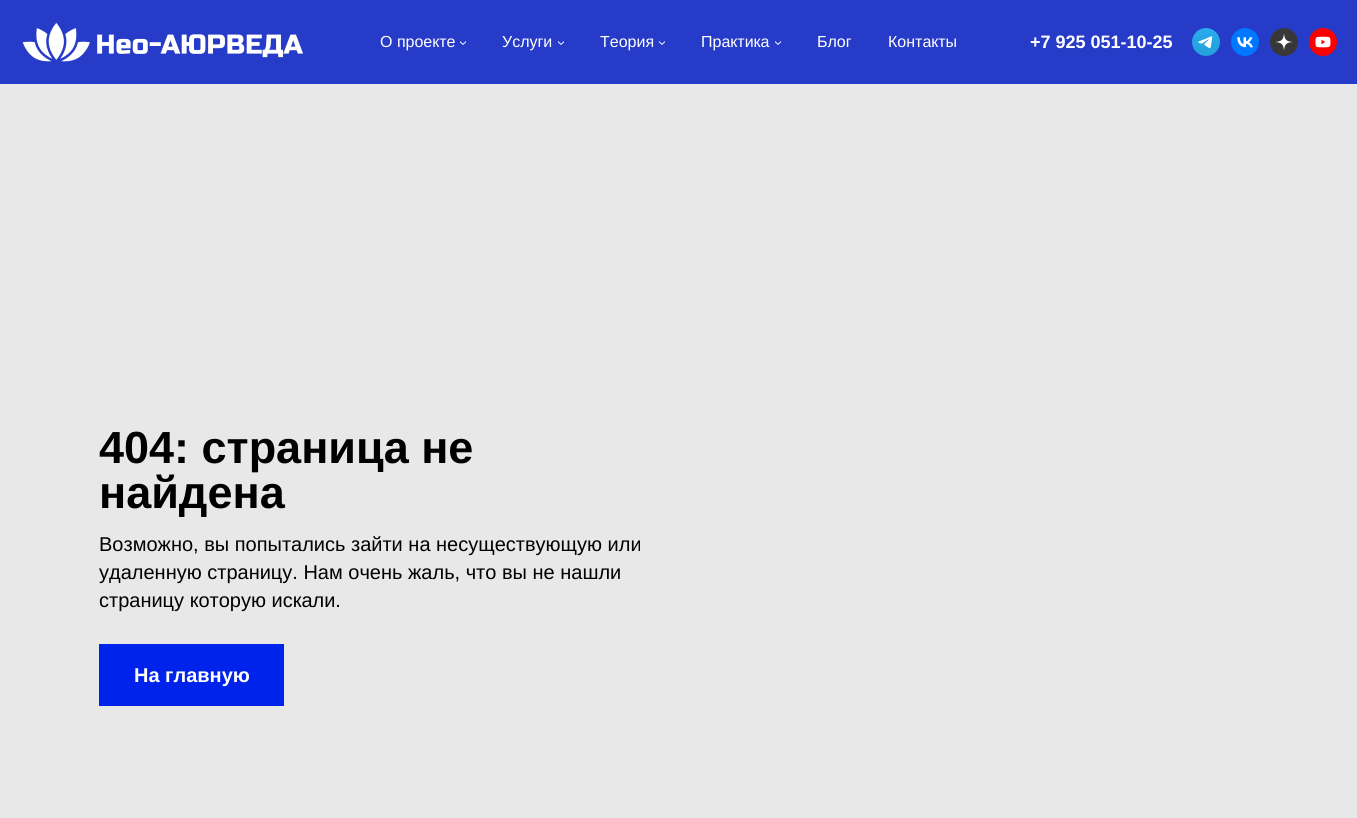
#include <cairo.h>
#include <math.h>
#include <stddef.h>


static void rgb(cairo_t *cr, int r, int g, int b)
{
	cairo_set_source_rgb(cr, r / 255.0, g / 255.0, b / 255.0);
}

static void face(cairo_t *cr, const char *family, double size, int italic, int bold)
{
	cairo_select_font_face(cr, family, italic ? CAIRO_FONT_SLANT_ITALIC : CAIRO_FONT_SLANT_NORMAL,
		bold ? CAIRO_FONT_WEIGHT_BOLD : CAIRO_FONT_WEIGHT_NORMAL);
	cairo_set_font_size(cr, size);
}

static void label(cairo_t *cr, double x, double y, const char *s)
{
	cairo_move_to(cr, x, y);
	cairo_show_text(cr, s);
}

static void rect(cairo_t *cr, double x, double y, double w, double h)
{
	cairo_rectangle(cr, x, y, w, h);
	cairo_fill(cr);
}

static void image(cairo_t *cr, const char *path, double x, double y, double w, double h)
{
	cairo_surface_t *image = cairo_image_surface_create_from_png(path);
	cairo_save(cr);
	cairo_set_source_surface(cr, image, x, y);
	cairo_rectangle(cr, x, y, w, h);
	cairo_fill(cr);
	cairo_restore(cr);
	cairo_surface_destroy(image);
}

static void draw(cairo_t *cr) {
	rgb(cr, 232, 232, 232);
	cairo_paint(cr);
	rgb(cr, 38, 60, 201);
	rect(cr, 0, 0, 1357, 84);
	image(cr, "image0.png", 22, 23, 281, 39);
	face(cr, "Liberation Sans", 16, 0, 0);
	rgb(cr, 255, 255, 255);
	label(cr, 380, 47, "О проекте");
	image(cr, "image1.png", 460, 41, 6, 4);
	label(cr, 502, 47, "Услуги");
	image(cr, "image1.png", 558, 41, 6, 4);
	label(cr, 600, 47, "Теория");
	image(cr, "image1.png", 659, 41, 6, 4);
	label(cr, 701, 47, "Практика");
	image(cr, "image1.png", 775, 41, 6, 4);
	label(cr, 817, 47, "Блог");
	label(cr, 888, 47, "Контакты");
	face(cr, "Liberation Sans", 18, 0, 1);
	label(cr, 1030, 48, "+7 925 051-10-25");
	image(cr, "image2.png", 1192, 28, 28, 28);
	image(cr, "image3.png", 1231, 28, 28, 28);
	image(cr, "image4.png", 1270, 28, 28, 28);
	image(cr, "image5.png", 1309, 28, 28, 28);
	face(cr, "Liberation Sans", 45, 0, 1);
	rgb(cr, 0, 0, 0);
	label(cr, 99, 463, "404: страница не");
	label(cr, 99, 508, "найдена");
	face(cr, "Liberation Sans", 20, 0, 0);
	label(cr, 99, 551, "Возможно, вы попытались зайти на несуществующую или");
	label(cr, 99, 579, "удаленную страницу. Нам очень жаль, что вы не нашли");
	label(cr, 99, 607, "страницу которую искали.");
	rgb(cr, 0, 35, 235);
	rect(cr, 99, 644, 185, 62);
	face(cr, "Liberation Sans", 20, 0, 1);
	rgb(cr, 255, 255, 255);
	label(cr, 134, 682, "На главную");
}

int main(void) {
	cairo_surface_t *surface = cairo_image_surface_create(CAIRO_FORMAT_RGB24, 1357, 818);
	cairo_t *cr = cairo_create(surface);
	cairo_font_options_t *options = cairo_font_options_create();
	cairo_font_options_set_hint_metrics(options, CAIRO_HINT_METRICS_OFF);
	cairo_font_options_set_hint_style(options, CAIRO_HINT_STYLE_NONE);
	cairo_set_font_options(cr, options);
	cairo_set_miter_limit(cr, 4);
	draw(cr);
	cairo_surface_write_to_png(surface, "render.png");
	cairo_font_options_destroy(options);
	cairo_destroy(cr);
	cairo_surface_destroy(surface);
	return 0;
}
